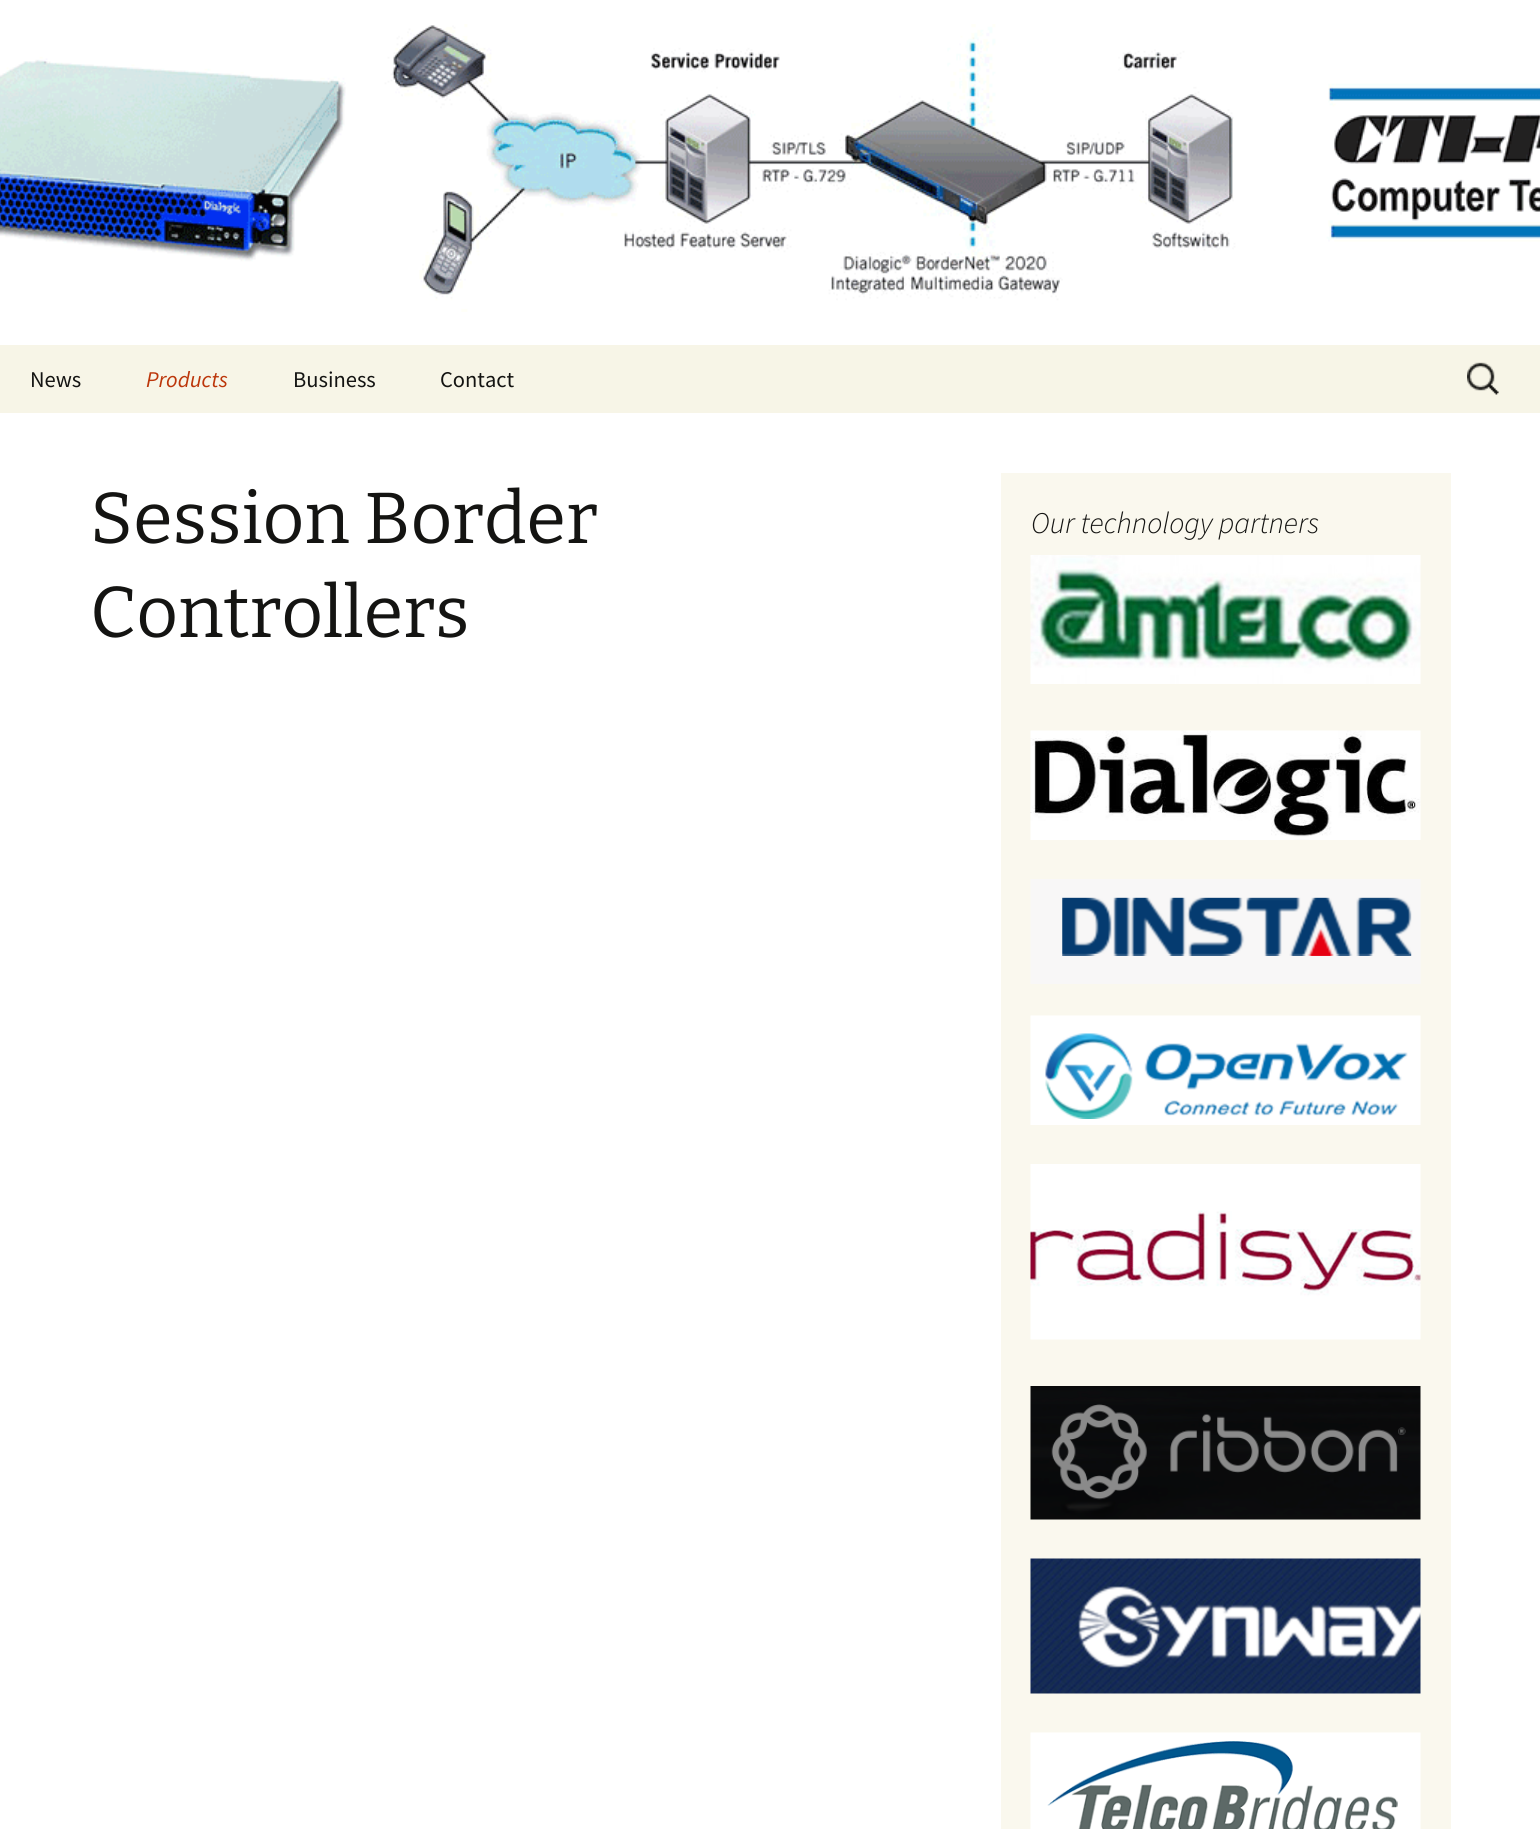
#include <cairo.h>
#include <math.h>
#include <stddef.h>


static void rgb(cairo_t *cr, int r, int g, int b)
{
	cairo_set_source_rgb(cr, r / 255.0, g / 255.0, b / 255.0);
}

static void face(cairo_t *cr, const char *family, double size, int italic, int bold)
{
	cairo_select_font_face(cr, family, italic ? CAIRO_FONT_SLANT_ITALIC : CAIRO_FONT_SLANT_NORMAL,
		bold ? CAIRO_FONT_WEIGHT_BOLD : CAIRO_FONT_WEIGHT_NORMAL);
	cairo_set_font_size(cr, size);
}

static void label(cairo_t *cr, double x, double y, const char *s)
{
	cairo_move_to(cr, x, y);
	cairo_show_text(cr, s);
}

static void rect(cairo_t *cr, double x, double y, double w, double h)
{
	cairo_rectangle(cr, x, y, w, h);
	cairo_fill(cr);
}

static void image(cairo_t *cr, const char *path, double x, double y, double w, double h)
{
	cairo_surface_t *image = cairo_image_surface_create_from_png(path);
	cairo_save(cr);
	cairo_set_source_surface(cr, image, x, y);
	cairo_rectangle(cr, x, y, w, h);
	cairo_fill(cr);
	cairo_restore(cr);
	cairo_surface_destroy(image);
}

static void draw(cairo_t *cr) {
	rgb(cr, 255, 255, 255);
	cairo_paint(cr);
	image(cr, "image0.png", 0, 24, 1540, 288);
	rgb(cr, 247, 245, 231);
	rect(cr, 0, 345, 1540, 68);
	face(cr, "Source Sans Pro", 22.5, 0, 0);
	rgb(cr, 20, 20, 18);
	label(cr, 30, 387, "News");
	face(cr, "Source Sans Pro", 22.5, 1, 0);
	rgb(cr, 188, 54, 10);
	label(cr, 146, 387, "Products");
	face(cr, "Source Sans Pro", 22.5, 0, 0);
	rgb(cr, 20, 20, 18);
	label(cr, 293, 387, "Business");
	label(cr, 440, 387, "Contact");
	image(cr, "image1.png", 1467, 362, 32, 33);
	face(cr, "Bitter Thin", 72, 0, 0);
	label(cr, 90, 543, "Session Border");
	label(cr, 90, 637, "Controllers");
	rgb(cr, 250, 248, 238);
	rect(cr, 1001, 473, 450, 1356);
	face(cr, "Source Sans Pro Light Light", 30, 1, 0);
	rgb(cr, 20, 20, 18);
	label(cr, 1031, 533, "Our technology partners");
	image(cr, "image2.png", 1030, 555, 391, 129);
	image(cr, "image3.png", 1030, 730, 391, 110);
	image(cr, "image4.png", 1030, 879, 391, 105);
	image(cr, "image5.png", 1030, 1015, 391, 110);
	image(cr, "image6.png", 1030, 1164, 391, 176);
	image(cr, "image7.png", 1030, 1386, 391, 134);
	image(cr, "image8.png", 1030, 1558, 391, 136);
	image(cr, "image9.png", 1030, 1732, 391, 97);
}

int main(void) {
	cairo_surface_t *surface = cairo_image_surface_create(CAIRO_FORMAT_RGB24, 1540, 1829);
	cairo_t *cr = cairo_create(surface);
	cairo_font_options_t *options = cairo_font_options_create();
	cairo_font_options_set_hint_metrics(options, CAIRO_HINT_METRICS_OFF);
	cairo_font_options_set_hint_style(options, CAIRO_HINT_STYLE_NONE);
	cairo_set_font_options(cr, options);
	cairo_set_miter_limit(cr, 4);
	draw(cr);
	cairo_surface_write_to_png(surface, "render.png");
	cairo_font_options_destroy(options);
	cairo_destroy(cr);
	cairo_surface_destroy(surface);
	return 0;
}
